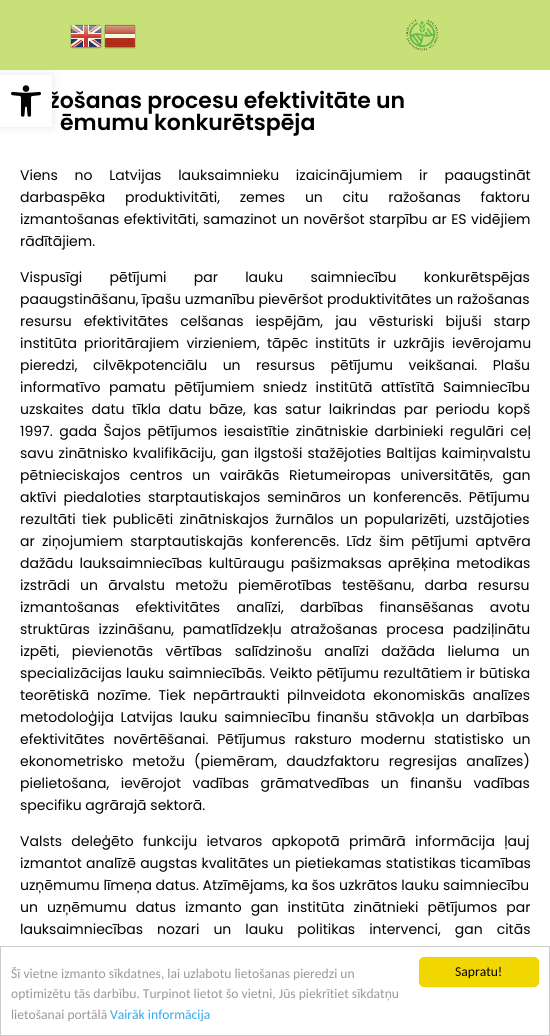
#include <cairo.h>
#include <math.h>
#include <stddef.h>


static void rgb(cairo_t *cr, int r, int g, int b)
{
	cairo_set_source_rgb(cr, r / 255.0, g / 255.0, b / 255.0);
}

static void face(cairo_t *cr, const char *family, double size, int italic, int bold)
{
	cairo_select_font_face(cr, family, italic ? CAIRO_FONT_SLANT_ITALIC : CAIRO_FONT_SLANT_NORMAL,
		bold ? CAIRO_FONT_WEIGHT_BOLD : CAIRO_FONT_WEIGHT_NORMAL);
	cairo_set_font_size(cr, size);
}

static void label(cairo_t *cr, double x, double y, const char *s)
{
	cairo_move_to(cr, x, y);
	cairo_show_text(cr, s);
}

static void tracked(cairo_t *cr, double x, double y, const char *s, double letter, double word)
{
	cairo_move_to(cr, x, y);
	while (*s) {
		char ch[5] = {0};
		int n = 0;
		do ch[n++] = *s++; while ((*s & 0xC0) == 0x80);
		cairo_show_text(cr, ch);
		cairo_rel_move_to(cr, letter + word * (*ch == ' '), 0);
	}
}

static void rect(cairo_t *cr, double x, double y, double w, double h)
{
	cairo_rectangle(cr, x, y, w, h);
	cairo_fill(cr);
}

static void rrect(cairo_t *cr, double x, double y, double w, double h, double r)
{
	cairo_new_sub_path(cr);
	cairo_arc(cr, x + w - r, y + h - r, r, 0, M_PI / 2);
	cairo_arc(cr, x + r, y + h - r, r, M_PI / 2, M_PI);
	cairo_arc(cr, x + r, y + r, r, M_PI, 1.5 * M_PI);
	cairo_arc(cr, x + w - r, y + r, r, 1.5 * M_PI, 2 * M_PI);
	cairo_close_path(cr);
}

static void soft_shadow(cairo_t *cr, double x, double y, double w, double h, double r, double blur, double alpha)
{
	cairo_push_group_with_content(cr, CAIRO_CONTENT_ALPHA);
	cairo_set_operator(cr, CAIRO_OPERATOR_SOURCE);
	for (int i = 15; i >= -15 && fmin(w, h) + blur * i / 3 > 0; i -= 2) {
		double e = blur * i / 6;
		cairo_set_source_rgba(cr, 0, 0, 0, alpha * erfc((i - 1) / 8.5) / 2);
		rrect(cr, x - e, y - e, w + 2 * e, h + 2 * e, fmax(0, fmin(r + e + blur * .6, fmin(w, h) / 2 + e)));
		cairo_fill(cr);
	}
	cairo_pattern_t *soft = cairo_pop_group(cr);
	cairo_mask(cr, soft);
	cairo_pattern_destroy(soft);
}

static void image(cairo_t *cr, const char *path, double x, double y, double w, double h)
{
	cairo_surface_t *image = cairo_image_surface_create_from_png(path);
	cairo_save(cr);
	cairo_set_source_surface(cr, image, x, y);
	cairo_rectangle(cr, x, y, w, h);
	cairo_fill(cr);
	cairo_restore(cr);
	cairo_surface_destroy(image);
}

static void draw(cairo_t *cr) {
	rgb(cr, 255, 255, 255);
	cairo_paint(cr);
	rgb(cr, 199, 224, 120);
	rect(cr, 0, 0, 550, 70);
	rgb(cr, 0, 0, 0);
	soft_shadow(cr, 0, 75, 52, 52, 0, 5, 0.1);
	face(cr, "Poppins SemiBold", 22, 0, 0);
	rgb(cr, 0, 0, 0);
	label(cr, 49, 108, "žošanas procesu efektivitāte un");
	rgb(cr, 255, 255, 255);
	rect(cr, 0, 75, 52, 52);
	image(cr, "image0.png", 11, 85, 30, 32);
	image(cr, "image1.png", 70, 24, 32, 25);
	image(cr, "image2.png", 104, 24, 32, 25);
	image(cr, "image3.png", 406, 19, 33, 32);
	rgb(cr, 0, 0, 0);
	label(cr, 60, 130, "ēmumu konkurētspēja");
	face(cr, "Poppins", 14, 0, 0);
	tracked(cr, 20, 180, "Viens no Latvijas lauksaimnieku izaicinājumiem ir paaugstināt", 0, 13);
	tracked(cr, 20, 202, "darbaspēka produktivitāti, zemes un citu ražošanas faktoru", 0, 16);
	tracked(cr, 20, 224, "izmantošanas efektivitāti, samazinot un novēršot starpību ar ES vidējiem", 0, 0.75);
	label(cr, 20, 246, "rādītājiem.");
	tracked(cr, 20, 282, "Vispusīgi pētījumi par lauku saimniecību konkurētspējas", 0, 23.5);
	label(cr, 20, 304, "paaugstināšanu, īpašu uzmanību pievēršot produktivitātes un ražošanas");
	tracked(cr, 20, 326, "resursu efektivitātes celšanas iespējām, jau vēsturiski bijuši starp", 0, 8.25);
	tracked(cr, 20, 348, "institūta prioritārajiem virzieniem, tāpēc institūts ir uzkrājis ievērojamu", 0, 3.5);
	tracked(cr, 20, 370, "pieredzi, cilvēkpotenciālu un resursus pētījumu veikšanai. Plašu", 0, 11.75);
	tracked(cr, 20, 392, "informatīvo pamatu pētījumiem sniedz institūtā attīstītā Saimniecību", 0, 4.75);
	tracked(cr, 20, 414, "uzskaites datu tīkla datu bāze, kas satur laikrindas par periodu kopš", 0, 3.9);
	tracked(cr, 20, 436, "1997. gada Šajos pētījumos iesaistītie zinātniskie darbinieki regulāri ceļ", 0, 2.75);
	tracked(cr, 20, 458, "savu zinātnisko kvalifikāciju, gan ilgstoši stažējoties Baltijas kaimiņvalstu", 0, 1.25);
	tracked(cr, 20, 480, "pētnieciskajos centros un vairākās Rietumeiropas universitātēs, gan", 0, 6);
	tracked(cr, 20, 502, "aktīvi piedaloties starptautiskajos semināros un konferencēs. Pētījumu", 0, 3.25);
	tracked(cr, 20, 524, "rezultāti tiek publicēti zinātniskajos žurnālos un popularizēti, uzstājoties", 0, 2.5);
	tracked(cr, 20, 546, "ar ziņojumiem starptautiskajās konferencēs. Līdz šim pētījumi aptvēra", 0, 3.5);
	tracked(cr, 20, 568, "dažādu lauksaimniecības kultūraugu pašizmaksas aprēķina metodikas", 0, 2.5);
	tracked(cr, 20, 590, "izstrādi un ārvalstu metožu piemērotības testēšanu, darba resursu", 0, 6.5);
	tracked(cr, 20, 612, "izmantošanas efektivitātes analīzi, darbības finansēšanas avotu", 0, 12.5);
	tracked(cr, 20, 634, "struktūras izzināšanu, pamatlīdzekļu atražošanas procesa padziļinātu", 0, 5);
	tracked(cr, 20, 656, "izpēti, pievienotās vērtības salīdzinošu analīzi dažāda lieluma un", 0, 8.75);
	tracked(cr, 20, 678, "specializācijas lauku saimniecībās. Veikto pētījumu rezultātiem ir būtiska", 0, 0.5);
	tracked(cr, 20, 700, "teorētiskā nozīme. Tiek nepārtraukti pilnveidota ekonomiskās analīzes", 0, 4);
	tracked(cr, 20, 722, "metodoloģija Latvijas lauku saimniecību finanšu stāvokļa un darbības", 0, 3);
	tracked(cr, 20, 744, "efektivitātes novērtēšanai. Pētījumus raksturo modernu statistisko un", 0, 5);
	tracked(cr, 20, 766, "ekonometrisko metožu (piemēram, daudzfaktoru regresijas analīzes)", 0, 5.5);
	tracked(cr, 20, 788, "pielietošana, ievērojot vadības grāmatvedības un finanšu vadības", 0, 7.75);
	label(cr, 20, 810, "specifiku agrārajā sektorā.");
	tracked(cr, 20, 846, "Valsts deleģēto funkciju ietvaros apkopotā primārā informācija ļauj", 0, 5.5);
	tracked(cr, 20, 868, "izmantot analīzē augstas kvalitātes un pietiekamas statistikas ticamības", 0, 0.5);
	label(cr, 20, 890, "uzņēmumu līmeņa datus. Atzīmējams, ka šos uzkrātos lauku saimniecību");
	tracked(cr, 20, 912, "un uzņēmumu datus izmanto gan institūta zinātnieki pētījumos par", 0, 5.25);
	tracked(cr, 20, 934, "lauksaimniecības nozari un lauku politikas intervenci, gan citās", 0, 10.25);
	cairo_rectangle(cr, 0.5, 946.5, 549, 89);
	rgb(cr, 204, 204, 204);
	cairo_set_line_width(cr, 1);
	cairo_stroke(cr);
	face(cr, "Carlito", 13.6, 0, 0);
	rgb(cr, 153, 153, 153);
	label(cr, 11, 978, "Šī vietne izmanto sīkdatnes, lai uzlabotu lietošanas pieredzi un");
	label(cr, 11, 998, "optimizētu tās darbību. Turpinot lietot šo vietni, Jūs piekrītiet sīkdatņu");
	label(cr, 11, 1019, "lietošanai portālā");
	rgb(cr, 49, 168, 240);
	label(cr, 110, 1019, "Vairāk informācija");
	rgb(cr, 241, 214, 0);
	rrect(cr, 419, 957, 120, 30, 5);
	cairo_fill(cr);
	rgb(cr, 0, 0, 0);
	label(cr, 455, 976, "Sapratu!");
}

int main(void) {
	cairo_surface_t *surface = cairo_image_surface_create(CAIRO_FORMAT_RGB24, 550, 1036);
	cairo_t *cr = cairo_create(surface);
	cairo_font_options_t *options = cairo_font_options_create();
	cairo_font_options_set_hint_metrics(options, CAIRO_HINT_METRICS_OFF);
	cairo_font_options_set_hint_style(options, CAIRO_HINT_STYLE_NONE);
	cairo_set_font_options(cr, options);
	cairo_set_miter_limit(cr, 4);
	draw(cr);
	cairo_surface_write_to_png(surface, "render.png");
	cairo_font_options_destroy(options);
	cairo_destroy(cr);
	cairo_surface_destroy(surface);
	return 0;
}
